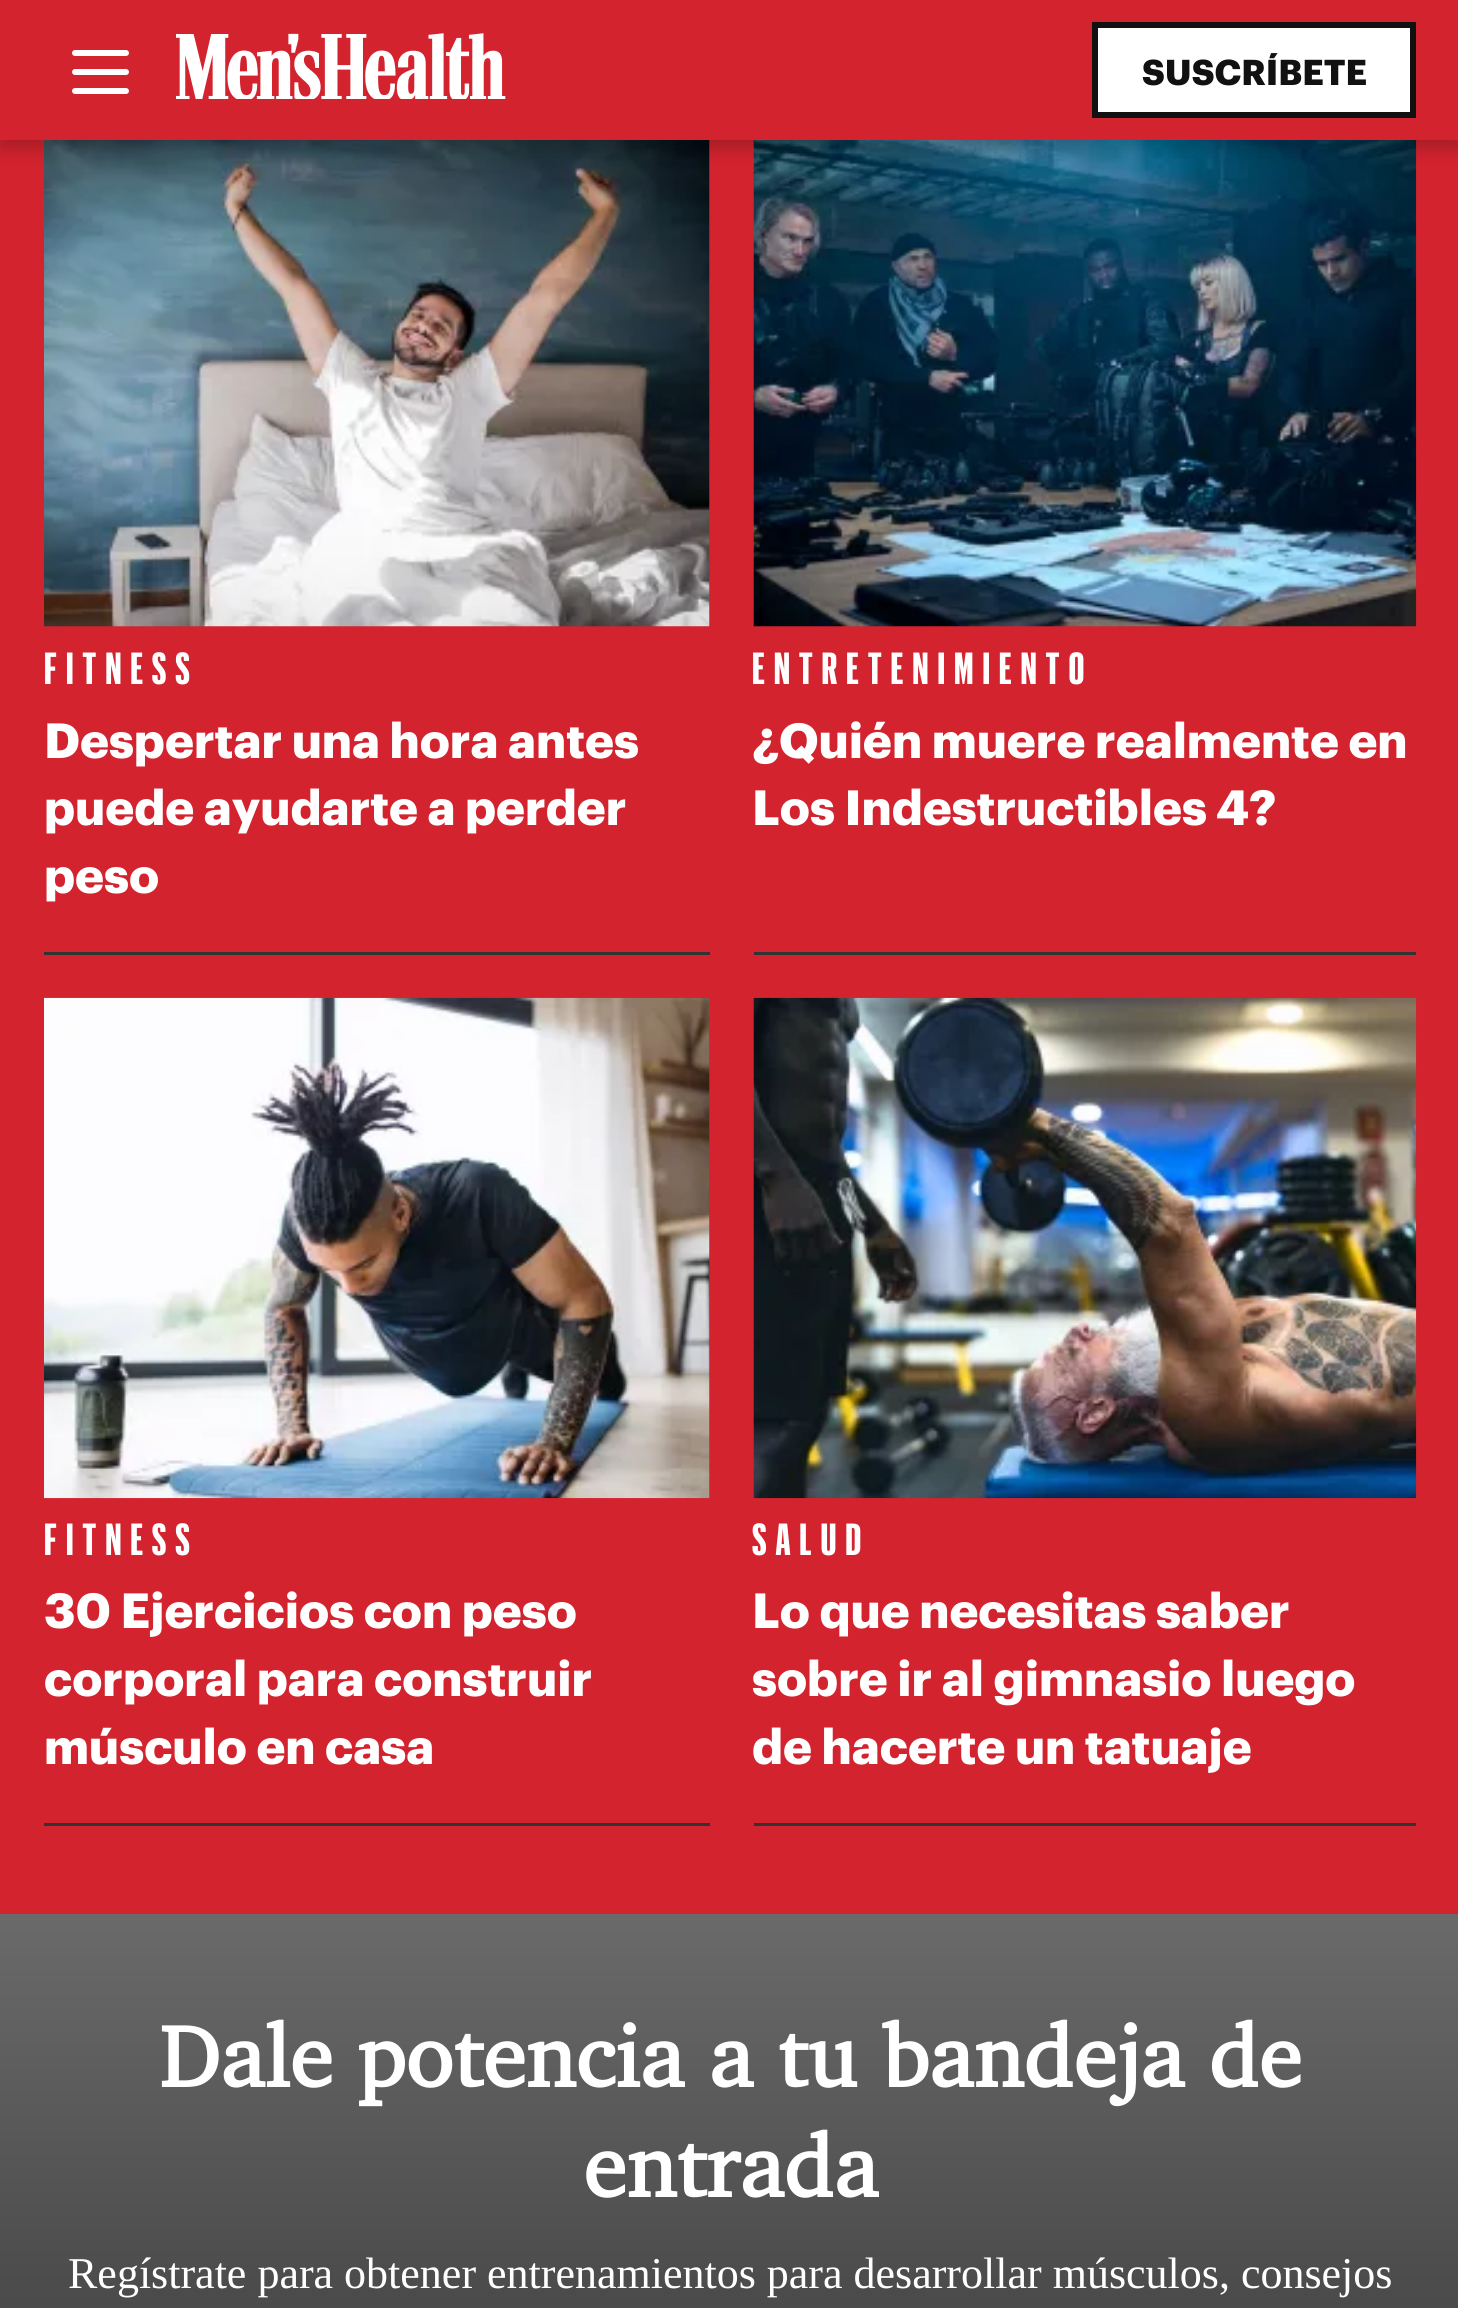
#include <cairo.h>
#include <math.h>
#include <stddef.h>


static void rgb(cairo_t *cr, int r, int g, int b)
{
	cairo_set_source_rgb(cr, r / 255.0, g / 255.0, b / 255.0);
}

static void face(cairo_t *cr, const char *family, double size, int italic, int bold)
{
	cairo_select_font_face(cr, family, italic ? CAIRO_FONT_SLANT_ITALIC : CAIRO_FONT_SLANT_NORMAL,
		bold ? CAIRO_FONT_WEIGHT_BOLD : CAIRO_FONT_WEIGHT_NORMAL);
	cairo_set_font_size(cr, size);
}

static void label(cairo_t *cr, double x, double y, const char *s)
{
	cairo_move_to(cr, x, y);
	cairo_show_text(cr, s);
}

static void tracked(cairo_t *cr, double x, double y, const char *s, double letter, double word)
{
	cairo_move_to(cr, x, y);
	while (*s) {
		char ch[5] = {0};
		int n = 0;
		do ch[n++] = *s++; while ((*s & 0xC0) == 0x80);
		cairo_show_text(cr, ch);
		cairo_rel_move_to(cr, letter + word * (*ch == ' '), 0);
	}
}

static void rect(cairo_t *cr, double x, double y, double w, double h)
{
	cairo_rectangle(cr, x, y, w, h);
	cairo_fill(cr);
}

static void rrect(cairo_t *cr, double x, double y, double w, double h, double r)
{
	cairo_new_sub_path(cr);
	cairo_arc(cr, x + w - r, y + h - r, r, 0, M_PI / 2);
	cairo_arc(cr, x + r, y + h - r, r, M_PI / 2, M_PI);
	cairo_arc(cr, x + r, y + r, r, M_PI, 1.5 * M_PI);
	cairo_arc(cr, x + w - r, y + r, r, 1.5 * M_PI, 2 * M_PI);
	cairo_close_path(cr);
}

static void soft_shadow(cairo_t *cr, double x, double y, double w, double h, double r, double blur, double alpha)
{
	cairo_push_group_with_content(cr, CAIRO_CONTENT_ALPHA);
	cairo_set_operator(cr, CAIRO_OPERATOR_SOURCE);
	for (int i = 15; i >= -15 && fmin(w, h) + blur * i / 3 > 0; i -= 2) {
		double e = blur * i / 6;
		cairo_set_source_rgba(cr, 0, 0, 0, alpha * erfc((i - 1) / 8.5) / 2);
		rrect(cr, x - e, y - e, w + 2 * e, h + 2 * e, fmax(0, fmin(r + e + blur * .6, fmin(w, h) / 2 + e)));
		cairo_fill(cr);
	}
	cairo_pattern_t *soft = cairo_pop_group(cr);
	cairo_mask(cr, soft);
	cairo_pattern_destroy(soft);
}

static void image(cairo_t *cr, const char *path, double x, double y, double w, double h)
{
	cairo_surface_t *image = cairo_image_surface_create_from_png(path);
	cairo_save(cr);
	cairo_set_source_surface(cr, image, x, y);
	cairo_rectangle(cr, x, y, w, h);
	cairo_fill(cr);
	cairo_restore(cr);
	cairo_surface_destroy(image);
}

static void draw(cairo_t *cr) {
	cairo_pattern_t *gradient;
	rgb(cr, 210, 35, 46);
	cairo_paint(cr);
	image(cr, "image1.png", 44, 140, 666, 487);
	image(cr, "image2.png", 753, 140, 664, 487);
	rgb(cr, 0, 0, 0);
	soft_shadow(cr, 0, 8, 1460, 141, 0, 8, 0.2);
	rgb(cr, 210, 35, 46);
	rect(cr, 0, 0, 1458, 140);
	rgb(cr, 255, 255, 255);
	rrect(cr, 72, 69, 57, 6, 3);
	cairo_fill(cr);
	rrect(cr, 72, 50, 57, 6, 3);
	cairo_fill(cr);
	rrect(cr, 72, 88, 57, 6, 3);
	cairo_fill(cr);
	image(cr, "image0.png", 176, 33, 330, 66);
	cairo_rectangle(cr, 1095, 25, 318, 90);
	cairo_fill_preserve(cr);
	rgb(cr, 17, 17, 17);
	cairo_set_line_width(cr, 6);
	cairo_stroke(cr);
	face(cr, "Graphik", 35.25, 0, 1);
	label(cr, 1142, 85, "SUSCRÍBETE");
	rgb(cr, 51, 51, 51);
	rect(cr, 44, 952, 666, 3);
	face(cr, "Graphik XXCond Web", 44, 0, 1);
	rgb(cr, 255, 255, 255);
	tracked(cr, 44, 684, "FITNESS", 8.75, 0);
	face(cr, "Graphik", 48.4, 0, 1);
	label(cr, 44, 758, "Despertar una hora antes");
	label(cr, 44, 825, "puede ayudarte a perder");
	label(cr, 44, 893, "peso");
	rgb(cr, 51, 51, 51);
	rect(cr, 754, 952, 662, 3);
	face(cr, "Graphik XXCond Web", 44, 0, 1);
	rgb(cr, 255, 255, 255);
	tracked(cr, 752, 684, "ENTRETENIMIENTO", 8.75, 0);
	face(cr, "Graphik", 48.4, 0, 1);
	label(cr, 752, 758, "¿Quién muere realmente en");
	label(cr, 752, 825, "Los Indestructibles 4?");
	rgb(cr, 51, 51, 51);
	rect(cr, 44, 1823, 666, 3);
	image(cr, "image3.png", 44, 997, 666, 502);
	face(cr, "Graphik XXCond Web", 44, 0, 1);
	rgb(cr, 255, 255, 255);
	tracked(cr, 44, 1555, "FITNESS", 8.75, 0);
	face(cr, "Graphik", 48.4, 0, 1);
	label(cr, 44, 1628, "30 Ejercicios con peso");
	label(cr, 44, 1696, "corporal para construir");
	label(cr, 44, 1764, "músculo en casa");
	rgb(cr, 51, 51, 51);
	rect(cr, 754, 1823, 662, 3);
	image(cr, "image4.png", 753, 997, 664, 502);
	face(cr, "Graphik XXCond Web", 44, 0, 1);
	rgb(cr, 255, 255, 255);
	tracked(cr, 752, 1555, "SALUD", 8.75, 0);
	face(cr, "Graphik", 48.4, 0, 1);
	label(cr, 752, 1628, "Lo que necesitas saber");
	label(cr, 752, 1696, "sobre ir al gimnasio luego");
	label(cr, 752, 1764, "de hacerte un tatuaje");
	gradient = cairo_pattern_create_linear(730, 1914, 730, 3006);
	cairo_pattern_add_color_stop_rgba(gradient, 0, 0.416, 0.416, 0.416, 1);
	cairo_pattern_add_color_stop_rgba(gradient, 1, 0.067, 0.067, 0.067, 1);
	cairo_set_source(cr, gradient);
	cairo_pattern_destroy(gradient);
	rect(cr, 0, 1914, 1458, 394);
	face(cr, "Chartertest", 88, 0, 1);
	rgb(cr, 255, 255, 255);
	label(cr, 159, 2087, "Dale potencia a tu bandeja de");
	label(cr, 583, 2197, "entrada");
	face(cr, "Liberation Serif", 44, 0, 0);
	label(cr, 68, 2288, "Regístrate para obtener entrenamientos para desarrollar músculos, consejos");
}

int main(void) {
	cairo_surface_t *surface = cairo_image_surface_create(CAIRO_FORMAT_RGB24, 1458, 2308);
	cairo_t *cr = cairo_create(surface);
	cairo_font_options_t *options = cairo_font_options_create();
	cairo_font_options_set_hint_metrics(options, CAIRO_HINT_METRICS_OFF);
	cairo_font_options_set_hint_style(options, CAIRO_HINT_STYLE_NONE);
	cairo_set_font_options(cr, options);
	cairo_set_miter_limit(cr, 4);
	draw(cr);
	cairo_surface_write_to_png(surface, "render.png");
	cairo_font_options_destroy(options);
	cairo_destroy(cr);
	cairo_surface_destroy(surface);
	return 0;
}
